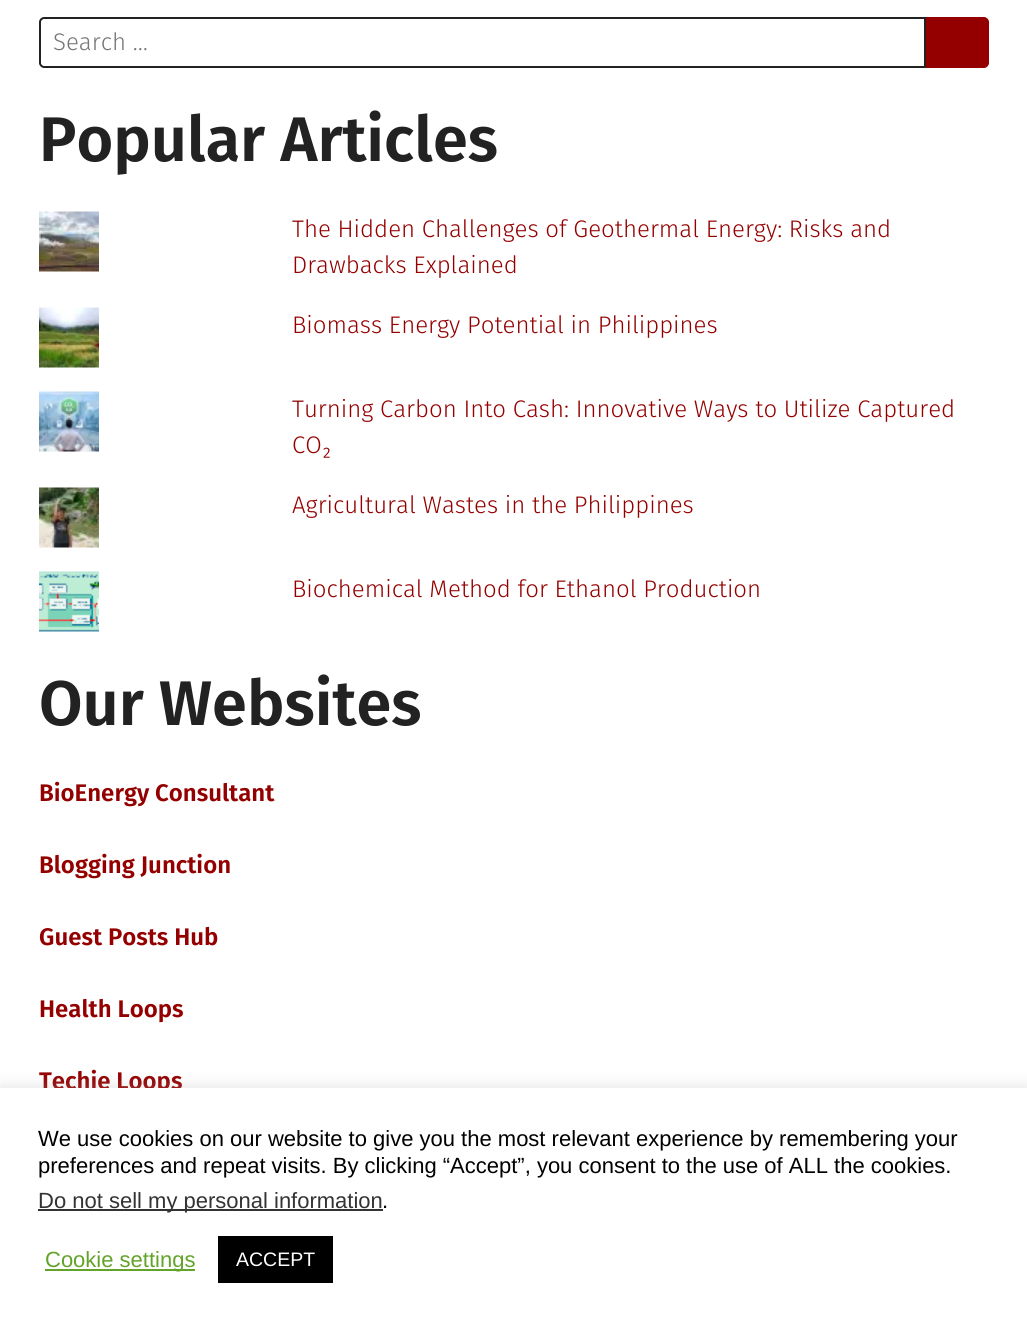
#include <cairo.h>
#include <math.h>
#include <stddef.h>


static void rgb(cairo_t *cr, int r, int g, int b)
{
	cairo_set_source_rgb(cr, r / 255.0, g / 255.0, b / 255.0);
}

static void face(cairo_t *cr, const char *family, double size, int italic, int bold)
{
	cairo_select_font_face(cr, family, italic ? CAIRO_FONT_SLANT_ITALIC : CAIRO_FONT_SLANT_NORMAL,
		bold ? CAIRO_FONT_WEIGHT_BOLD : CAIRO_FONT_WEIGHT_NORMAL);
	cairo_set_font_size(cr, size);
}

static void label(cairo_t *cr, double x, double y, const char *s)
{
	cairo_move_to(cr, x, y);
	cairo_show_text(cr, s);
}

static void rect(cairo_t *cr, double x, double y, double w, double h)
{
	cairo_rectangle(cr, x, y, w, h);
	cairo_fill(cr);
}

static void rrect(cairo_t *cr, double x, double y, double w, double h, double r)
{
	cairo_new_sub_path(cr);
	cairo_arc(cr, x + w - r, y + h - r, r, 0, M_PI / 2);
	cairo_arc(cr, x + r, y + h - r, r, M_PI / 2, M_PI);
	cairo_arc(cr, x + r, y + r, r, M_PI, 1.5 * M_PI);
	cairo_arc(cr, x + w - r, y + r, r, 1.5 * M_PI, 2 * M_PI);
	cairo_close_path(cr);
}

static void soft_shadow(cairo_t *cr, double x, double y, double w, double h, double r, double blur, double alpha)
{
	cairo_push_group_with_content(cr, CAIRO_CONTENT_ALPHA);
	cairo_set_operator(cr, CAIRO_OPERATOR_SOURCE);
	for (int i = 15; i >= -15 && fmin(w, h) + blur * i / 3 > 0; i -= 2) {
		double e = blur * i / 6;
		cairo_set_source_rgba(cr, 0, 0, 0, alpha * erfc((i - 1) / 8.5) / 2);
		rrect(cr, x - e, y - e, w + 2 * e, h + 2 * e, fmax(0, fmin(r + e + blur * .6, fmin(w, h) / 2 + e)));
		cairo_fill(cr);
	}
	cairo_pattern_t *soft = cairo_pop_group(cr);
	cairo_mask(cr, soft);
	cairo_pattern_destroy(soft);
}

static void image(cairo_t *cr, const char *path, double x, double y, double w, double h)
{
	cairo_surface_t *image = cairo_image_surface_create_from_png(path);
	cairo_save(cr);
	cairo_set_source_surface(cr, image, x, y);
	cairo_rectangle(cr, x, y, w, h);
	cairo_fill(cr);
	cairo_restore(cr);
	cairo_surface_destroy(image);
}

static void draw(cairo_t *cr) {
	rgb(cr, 255, 255, 255);
	cairo_paint(cr);
	cairo_new_path(cr);
	cairo_move_to(cr, 44, 18);
	cairo_line_to(cr, 925, 18);
	cairo_line_to(cr, 925, 67);
	cairo_line_to(cr, 44, 67);
	cairo_curve_to(cr, 42, 67, 40, 65, 40, 63);
	cairo_line_to(cr, 40, 22);
	cairo_curve_to(cr, 40, 20, 42, 18, 44, 18);
	cairo_close_path(cr);
	rgb(cr, 34, 34, 34);
	cairo_stroke(cr);
	face(cr, "Fira Sans Light", 24, 0, 0);
	rgb(cr, 117, 117, 117);
	label(cr, 53, 50, "Search …");
	rgb(cr, 148, 0, 0);
	cairo_new_path(cr);
	cairo_move_to(cr, 927, 18);
	cairo_line_to(cr, 984, 18);
	cairo_curve_to(cr, 986, 18, 988, 20, 988, 22);
	cairo_line_to(cr, 988, 63);
	cairo_curve_to(cr, 988, 65, 986, 67, 984, 67);
	cairo_line_to(cr, 927, 67);
	cairo_close_path(cr);
	cairo_fill_preserve(cr);
	cairo_stroke(cr);
	face(cr, "Fira Sans SemiBold", 63, 0, 0);
	rgb(cr, 34, 34, 34);
	label(cr, 39, 161, "Popular Articles");
	image(cr, "image0.png", 39, 211, 60, 61);
	face(cr, "Fira Sans Light", 24, 0, 0);
	rgb(cr, 148, 0, 0);
	label(cr, 292, 237, "The Hidden Challenges of Geothermal Energy: Risks and");
	label(cr, 292, 273, "Drawbacks Explained");
	image(cr, "image1.png", 39, 307, 60, 61);
	label(cr, 292, 333, "Biomass Energy Potential in Philippines");
	image(cr, "image2.png", 39, 391, 60, 61);
	label(cr, 292, 417, "Turning Carbon Into Cash: Innovative Ways to Utilize Captured");
	label(cr, 292, 453, "CO₂");
	image(cr, "image3.png", 39, 487, 60, 61);
	label(cr, 292, 513, "Agricultural Wastes in the Philippines");
	image(cr, "image4.png", 39, 571, 60, 61);
	label(cr, 292, 597, "Biochemical Method for Ethanol Production");
	face(cr, "Fira Sans SemiBold", 63, 0, 0);
	rgb(cr, 34, 34, 34);
	label(cr, 39, 725, "Our Websites");
	face(cr, "Fira Sans SemiBold", 24, 0, 0);
	rgb(cr, 148, 0, 0);
	label(cr, 39, 801, "BioEnergy Consultant");
	label(cr, 39, 873, "Blogging Junction");
	label(cr, 39, 945, "Guest Posts Hub");
	label(cr, 39, 1017, "Health Loops");
	label(cr, 39, 1089, "Techie Loops");
	rgb(cr, 172, 171, 171);
	soft_shadow(cr, 0, 1086, 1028, 240, 0, 7.5, 0.3);
	rgb(cr, 255, 255, 255);
	rect(cr, 0, 1088, 1027, 239);
	face(cr, "Liberation Sans", 22, 0, 0);
	rgb(cr, 0, 0, 0);
	label(cr, 38, 1146, "We use cookies on our website to give you the most relevant experience by remembering your");
	label(cr, 38, 1173, "preferences and repeat visits. By clicking “Accept”, you consent to the use of ALL the cookies.");
	rgb(cr, 51, 51, 51);
	rect(cr, 38, 1209, 345, 2);
	label(cr, 38, 1208, "Do not sell my personal information");
	rgb(cr, 0, 0, 0);
	label(cr, 382, 1208, ".");
	rgb(cr, 98, 163, 41);
	rect(cr, 45, 1269, 150, 2);
	label(cr, 45, 1267, "Cookie settings");
	rgb(cr, 0, 0, 0);
	rect(cr, 218, 1236, 115, 47);
	face(cr, "Liberation Sans", 19.5, 0, 0);
	rgb(cr, 255, 255, 255);
	label(cr, 236, 1266, "ACCEPT");
}

int main(void) {
	cairo_surface_t *surface = cairo_image_surface_create(CAIRO_FORMAT_RGB24, 1027, 1327);
	cairo_t *cr = cairo_create(surface);
	cairo_font_options_t *options = cairo_font_options_create();
	cairo_font_options_set_hint_metrics(options, CAIRO_HINT_METRICS_OFF);
	cairo_font_options_set_hint_style(options, CAIRO_HINT_STYLE_NONE);
	cairo_set_font_options(cr, options);
	cairo_set_miter_limit(cr, 4);
	draw(cr);
	cairo_surface_write_to_png(surface, "render.png");
	cairo_font_options_destroy(options);
	cairo_destroy(cr);
	cairo_surface_destroy(surface);
	return 0;
}
